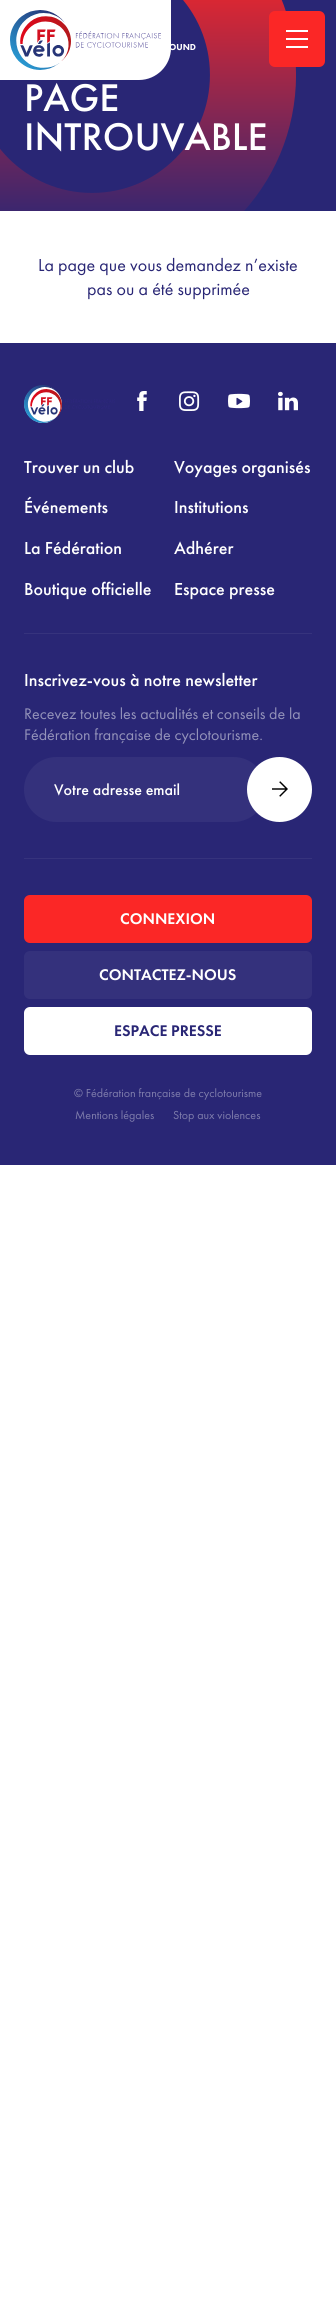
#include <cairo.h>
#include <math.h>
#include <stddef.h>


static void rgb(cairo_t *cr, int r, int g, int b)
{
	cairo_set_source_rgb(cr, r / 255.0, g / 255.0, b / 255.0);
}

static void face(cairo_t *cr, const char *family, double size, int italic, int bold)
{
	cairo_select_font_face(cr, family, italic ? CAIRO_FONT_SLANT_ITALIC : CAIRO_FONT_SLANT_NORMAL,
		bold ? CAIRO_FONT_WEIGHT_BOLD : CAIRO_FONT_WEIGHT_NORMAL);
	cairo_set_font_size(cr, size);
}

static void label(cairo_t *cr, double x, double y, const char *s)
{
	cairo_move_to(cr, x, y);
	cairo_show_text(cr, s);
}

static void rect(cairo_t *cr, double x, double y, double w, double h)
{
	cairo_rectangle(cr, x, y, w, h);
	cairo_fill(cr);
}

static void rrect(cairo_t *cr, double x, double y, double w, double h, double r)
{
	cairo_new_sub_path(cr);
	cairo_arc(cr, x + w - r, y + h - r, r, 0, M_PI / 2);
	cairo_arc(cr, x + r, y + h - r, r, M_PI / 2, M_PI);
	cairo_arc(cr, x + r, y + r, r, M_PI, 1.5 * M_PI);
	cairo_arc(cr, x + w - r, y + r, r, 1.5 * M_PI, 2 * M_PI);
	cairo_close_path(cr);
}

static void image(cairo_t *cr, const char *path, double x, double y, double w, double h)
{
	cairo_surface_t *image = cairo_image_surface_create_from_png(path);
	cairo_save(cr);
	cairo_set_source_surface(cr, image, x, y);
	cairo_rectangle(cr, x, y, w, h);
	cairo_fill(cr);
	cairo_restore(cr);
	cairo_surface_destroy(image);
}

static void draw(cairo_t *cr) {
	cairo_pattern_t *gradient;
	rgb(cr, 255, 255, 255);
	cairo_paint(cr);
	rgb(cr, 41, 38, 117);
	rect(cr, 0, 0, 336, 211);
	face(cr, "Futura PT Black", 9, 0, 0);
	rgb(cr, 255, 255, 255);
	label(cr, 169, 50, "OUND");
	cairo_save(cr);
	cairo_rectangle(cr, 0, 0, 296, 211);
	cairo_clip(cr);
	cairo_arc(cr, 92, 75, 161, 0, 2 * M_PI);
	gradient = cairo_pattern_create_linear(92, -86, 92, 236);
	cairo_pattern_add_color_stop_rgba(gradient, 0, 0.984, 0.153, 0.149, 1);
	cairo_pattern_add_color_stop_rgba(gradient, 0.21, 0.902, 0.153, 0.18, 1);
	cairo_pattern_add_color_stop_rgba(gradient, 1, 0.161, 0.149, 0.459, 1);
	cairo_set_source(cr, gradient);
	cairo_pattern_destroy(gradient);
	cairo_set_line_width(cr, 86.1);
	cairo_stroke(cr);
	cairo_restore(cr);
	cairo_new_path(cr);
	cairo_move_to(cr, 0, 0);
	cairo_line_to(cr, 171, 0);
	cairo_line_to(cr, 171, 48);
	cairo_curve_to(cr, 171, 65.5, 156.5, 80, 139, 80);
	cairo_line_to(cr, 0, 80);
	cairo_close_path(cr);
	cairo_fill(cr);
	image(cr, "image0.png", 10, 10, 151, 60);
	rgb(cr, 251, 39, 38);
	rrect(cr, 269, 11, 56, 56, 6);
	cairo_fill(cr);
	rgb(cr, 255, 255, 255);
	rect(cr, 286, 30, 22, 2);
	rect(cr, 286, 38, 22, 2);
	rect(cr, 286, 46, 22, 2);
	face(cr, "Futura PT Medium", 40, 0, 0);
	label(cr, 24, 111, "PAGE");
	label(cr, 24, 150, "INTROUVABLE");
	face(cr, "Futura PT", 18, 0, 0);
	rgb(cr, 41, 38, 117);
	label(cr, 38, 271, "La page que vous demandez n’existe");
	label(cr, 87, 295, "pas ou a été supprimée");
	rect(cr, 0, 343, 336, 822);
	image(cr, "image1.png", 24, 385, 91, 38);
	image(cr, "image2.png", 137, 391, 10, 20);
	image(cr, "image3.png", 179, 391, 21, 20);
	image(cr, "image4.png", 228, 393, 22, 16);
	image(cr, "image5.png", 278, 391, 20, 20);
	face(cr, "Futura PT Medium", 18, 0, 0);
	rgb(cr, 255, 255, 255);
	label(cr, 24, 473, "Trouver un club");
	label(cr, 174, 473, "Voyages organisés");
	label(cr, 24, 513, "Événements");
	label(cr, 174, 513, "Institutions");
	label(cr, 24, 554, "La Fédération");
	label(cr, 174, 554, "Adhérer");
	label(cr, 24, 595, "Boutique officielle");
	label(cr, 174, 595, "Espace presse");
	rgb(cr, 54, 51, 125);
	rect(cr, 24, 633, 288, 1);
	rect(cr, 24, 858, 288, 1);
	rgb(cr, 255, 255, 255);
	label(cr, 24, 686, "Inscrivez-vous à notre newsletter");
	face(cr, "Futura PT", 16, 0, 0);
	rgb(cr, 148, 147, 186);
	label(cr, 24, 719, "Recevez toutes les actualités et conseils de la");
	label(cr, 24, 740, "Fédération française de cyclotourisme.");
	rgb(cr, 52, 49, 124);
	rrect(cr, 24, 757, 242, 65, 32.5);
	cairo_fill(cr);
	face(cr, "Futura PT Medium", 16, 0, 0);
	rgb(cr, 255, 255, 255);
	label(cr, 54, 795, "Votre adresse email");
	cairo_new_path(cr);
	cairo_arc(cr, 279.5, 789.5, 32.5, 0, 2 * M_PI);
	cairo_fill(cr);
	image(cr, "image6.png", 272, 781, 16, 16);
	rgb(cr, 251, 39, 38);
	rrect(cr, 24, 895, 288, 48, 6);
	cairo_fill(cr);
	face(cr, "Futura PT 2 Medium", 16, 0, 0);
	rgb(cr, 255, 255, 255);
	label(cr, 120, 924, "CONNEXION");
	rgb(cr, 52, 49, 124);
	rrect(cr, 24, 951, 288, 48, 6);
	cairo_fill(cr);
	rgb(cr, 255, 255, 255);
	label(cr, 99, 980, "CONTACTEZ-NOUS");
	rrect(cr, 24, 1007, 288, 48, 6);
	cairo_fill(cr);
	rgb(cr, 41, 38, 117);
	label(cr, 114, 1036, "ESPACE PRESSE");
	face(cr, "Futura PT", 12, 0, 0);
	rgb(cr, 127, 125, 172);
	label(cr, 74, 1097, "© Fédération française de cyclotourisme");
	label(cr, 75, 1119, "Mentions légales");
	label(cr, 173, 1119, "Stop aux violences");
}

int main(void) {
	cairo_surface_t *surface = cairo_image_surface_create(CAIRO_FORMAT_RGB24, 336, 2302);
	cairo_t *cr = cairo_create(surface);
	cairo_font_options_t *options = cairo_font_options_create();
	cairo_font_options_set_hint_metrics(options, CAIRO_HINT_METRICS_OFF);
	cairo_font_options_set_hint_style(options, CAIRO_HINT_STYLE_NONE);
	cairo_set_font_options(cr, options);
	cairo_set_miter_limit(cr, 4);
	draw(cr);
	cairo_surface_write_to_png(surface, "render.png");
	cairo_font_options_destroy(options);
	cairo_destroy(cr);
	cairo_surface_destroy(surface);
	return 0;
}
